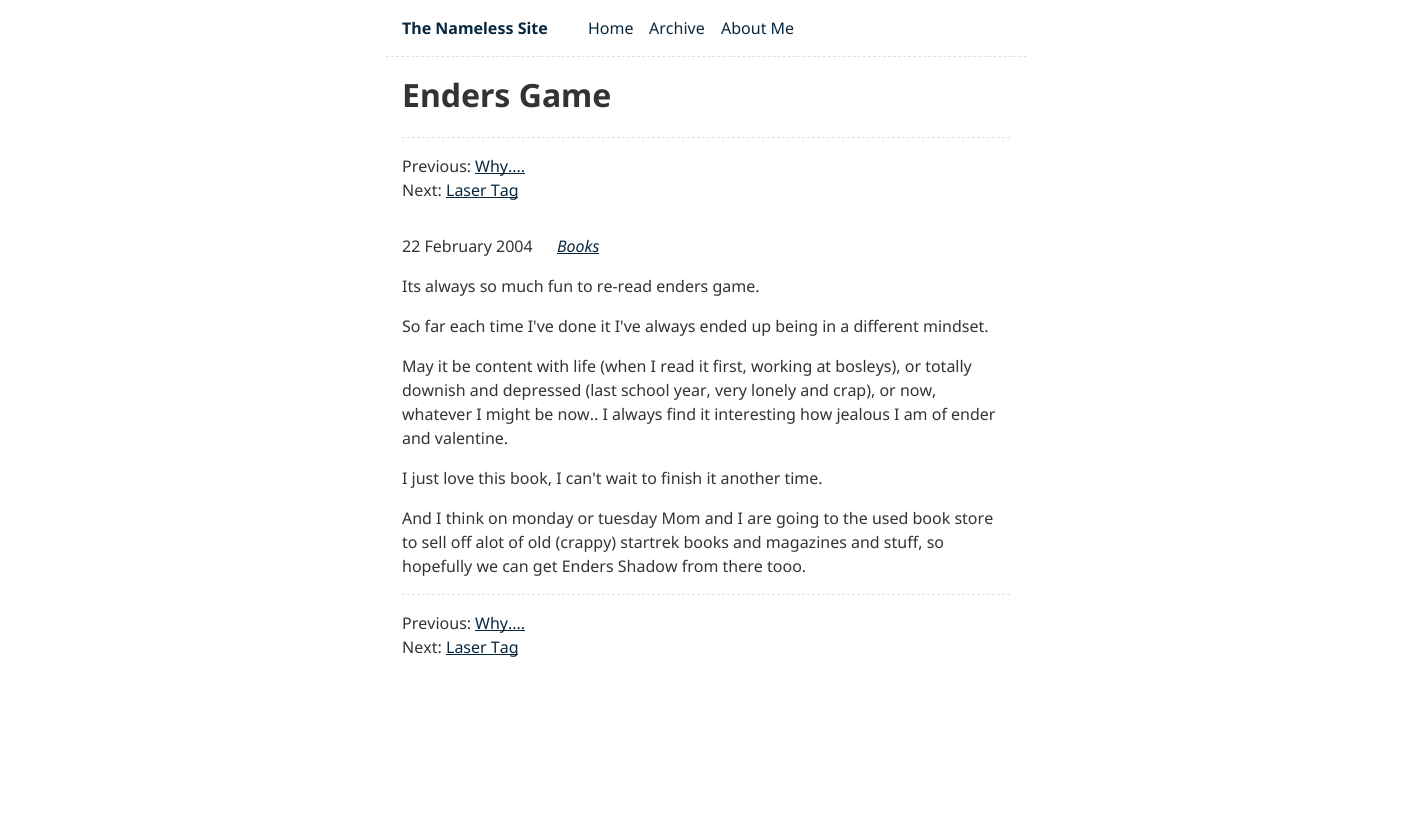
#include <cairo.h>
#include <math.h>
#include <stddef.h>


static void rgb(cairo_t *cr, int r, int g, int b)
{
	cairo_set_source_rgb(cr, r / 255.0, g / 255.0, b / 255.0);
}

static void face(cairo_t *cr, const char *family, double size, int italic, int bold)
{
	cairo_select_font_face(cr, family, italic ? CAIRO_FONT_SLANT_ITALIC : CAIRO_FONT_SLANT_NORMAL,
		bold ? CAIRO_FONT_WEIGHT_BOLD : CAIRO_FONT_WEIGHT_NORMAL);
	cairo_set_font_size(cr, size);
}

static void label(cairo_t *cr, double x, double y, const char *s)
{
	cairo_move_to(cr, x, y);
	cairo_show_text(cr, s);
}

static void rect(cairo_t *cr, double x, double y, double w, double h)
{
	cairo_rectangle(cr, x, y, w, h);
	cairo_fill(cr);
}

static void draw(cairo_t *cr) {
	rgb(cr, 255, 255, 255);
	cairo_paint(cr);
	cairo_new_path(cr);
	cairo_move_to(cr, 386, 56.5);
	cairo_line_to(cr, 1026, 56.5);
	rgb(cr, 224, 224, 224);
	cairo_set_line_width(cr, 1);
	cairo_set_dash(cr, (double[]){3, 2.02}, 2, 0);
	cairo_stroke(cr);
	face(cr, "Noto Sans", 16, 0, 1);
	rgb(cr, 8, 40, 64);
	label(cr, 402, 34, "The Nameless Site");
	face(cr, "Noto Sans", 16, 0, 0);
	label(cr, 588, 34, "Home");
	label(cr, 649, 34, "Archive");
	label(cr, 721, 34, "About Me");
	face(cr, "Noto Sans", 32, 0, 1);
	rgb(cr, 51, 51, 51);
	label(cr, 402, 107, "Enders Game");
	cairo_new_path(cr);
	cairo_move_to(cr, 402, 137.5);
	cairo_line_to(cr, 1010, 137.5);
	rgb(cr, 224, 224, 224);
	cairo_set_dash(cr, (double[]){3, 2}, 2, 0);
	cairo_stroke(cr);
	face(cr, "Noto Sans", 16, 0, 0);
	rgb(cr, 51, 51, 51);
	label(cr, 402, 172, "Previous:");
	rgb(cr, 8, 40, 64);
	rect(cr, 475, 173, 50, 1);
	label(cr, 475, 172, "Why....");
	rgb(cr, 51, 51, 51);
	label(cr, 402, 196, "Next:");
	rgb(cr, 8, 40, 64);
	rect(cr, 446, 197, 72, 1);
	label(cr, 446, 196, "Laser Tag");
	rgb(cr, 51, 51, 51);
	label(cr, 402, 252, "22 February 2004");
	face(cr, "Noto Sans", 16, 1, 0);
	rgb(cr, 8, 40, 64);
	label(cr, 557, 252, "Books");
	rect(cr, 557, 253, 42, 1);
	face(cr, "Noto Sans", 16, 0, 0);
	rgb(cr, 51, 51, 51);
	label(cr, 402, 292, "Its always so much fun to re-read enders game.");
	label(cr, 402, 332, "So far each time I've done it I've always ended up being in a different mindset.");
	label(cr, 402, 372, "May it be content with life (when I read it first, working at bosleys), or totally");
	label(cr, 402, 396, "downish and depressed (last school year, very lonely and crap), or now,");
	label(cr, 402, 420, "whatever I might be now.. I always find it interesting how jealous I am of ender");
	label(cr, 402, 444, "and valentine.");
	label(cr, 402, 484, "I just love this book, I can't wait to finish it another time.");
	label(cr, 402, 524, "And I think on monday or tuesday Mom and I are going to the used book store");
	label(cr, 402, 548, "to sell off alot of old (crappy) startrek books and magazines and stuff, so");
	label(cr, 402, 572, "hopefully we can get Enders Shadow from there tooo.");
	cairo_new_path(cr);
	cairo_move_to(cr, 402, 594.5);
	cairo_line_to(cr, 1010, 594.5);
	rgb(cr, 224, 224, 224);
	cairo_stroke(cr);
	rgb(cr, 51, 51, 51);
	label(cr, 402, 629, "Previous:");
	rgb(cr, 8, 40, 64);
	rect(cr, 475, 630, 50, 1);
	label(cr, 475, 629, "Why....");
	rgb(cr, 51, 51, 51);
	label(cr, 402, 653, "Next:");
	rgb(cr, 8, 40, 64);
	rect(cr, 446, 654, 72, 1);
	label(cr, 446, 653, "Laser Tag");
}

int main(void) {
	cairo_surface_t *surface = cairo_image_surface_create(CAIRO_FORMAT_RGB24, 1412, 816);
	cairo_t *cr = cairo_create(surface);
	cairo_font_options_t *options = cairo_font_options_create();
	cairo_font_options_set_hint_metrics(options, CAIRO_HINT_METRICS_OFF);
	cairo_font_options_set_hint_style(options, CAIRO_HINT_STYLE_NONE);
	cairo_set_font_options(cr, options);
	cairo_set_miter_limit(cr, 4);
	draw(cr);
	cairo_surface_write_to_png(surface, "render.png");
	cairo_font_options_destroy(options);
	cairo_destroy(cr);
	cairo_surface_destroy(surface);
	return 0;
}
